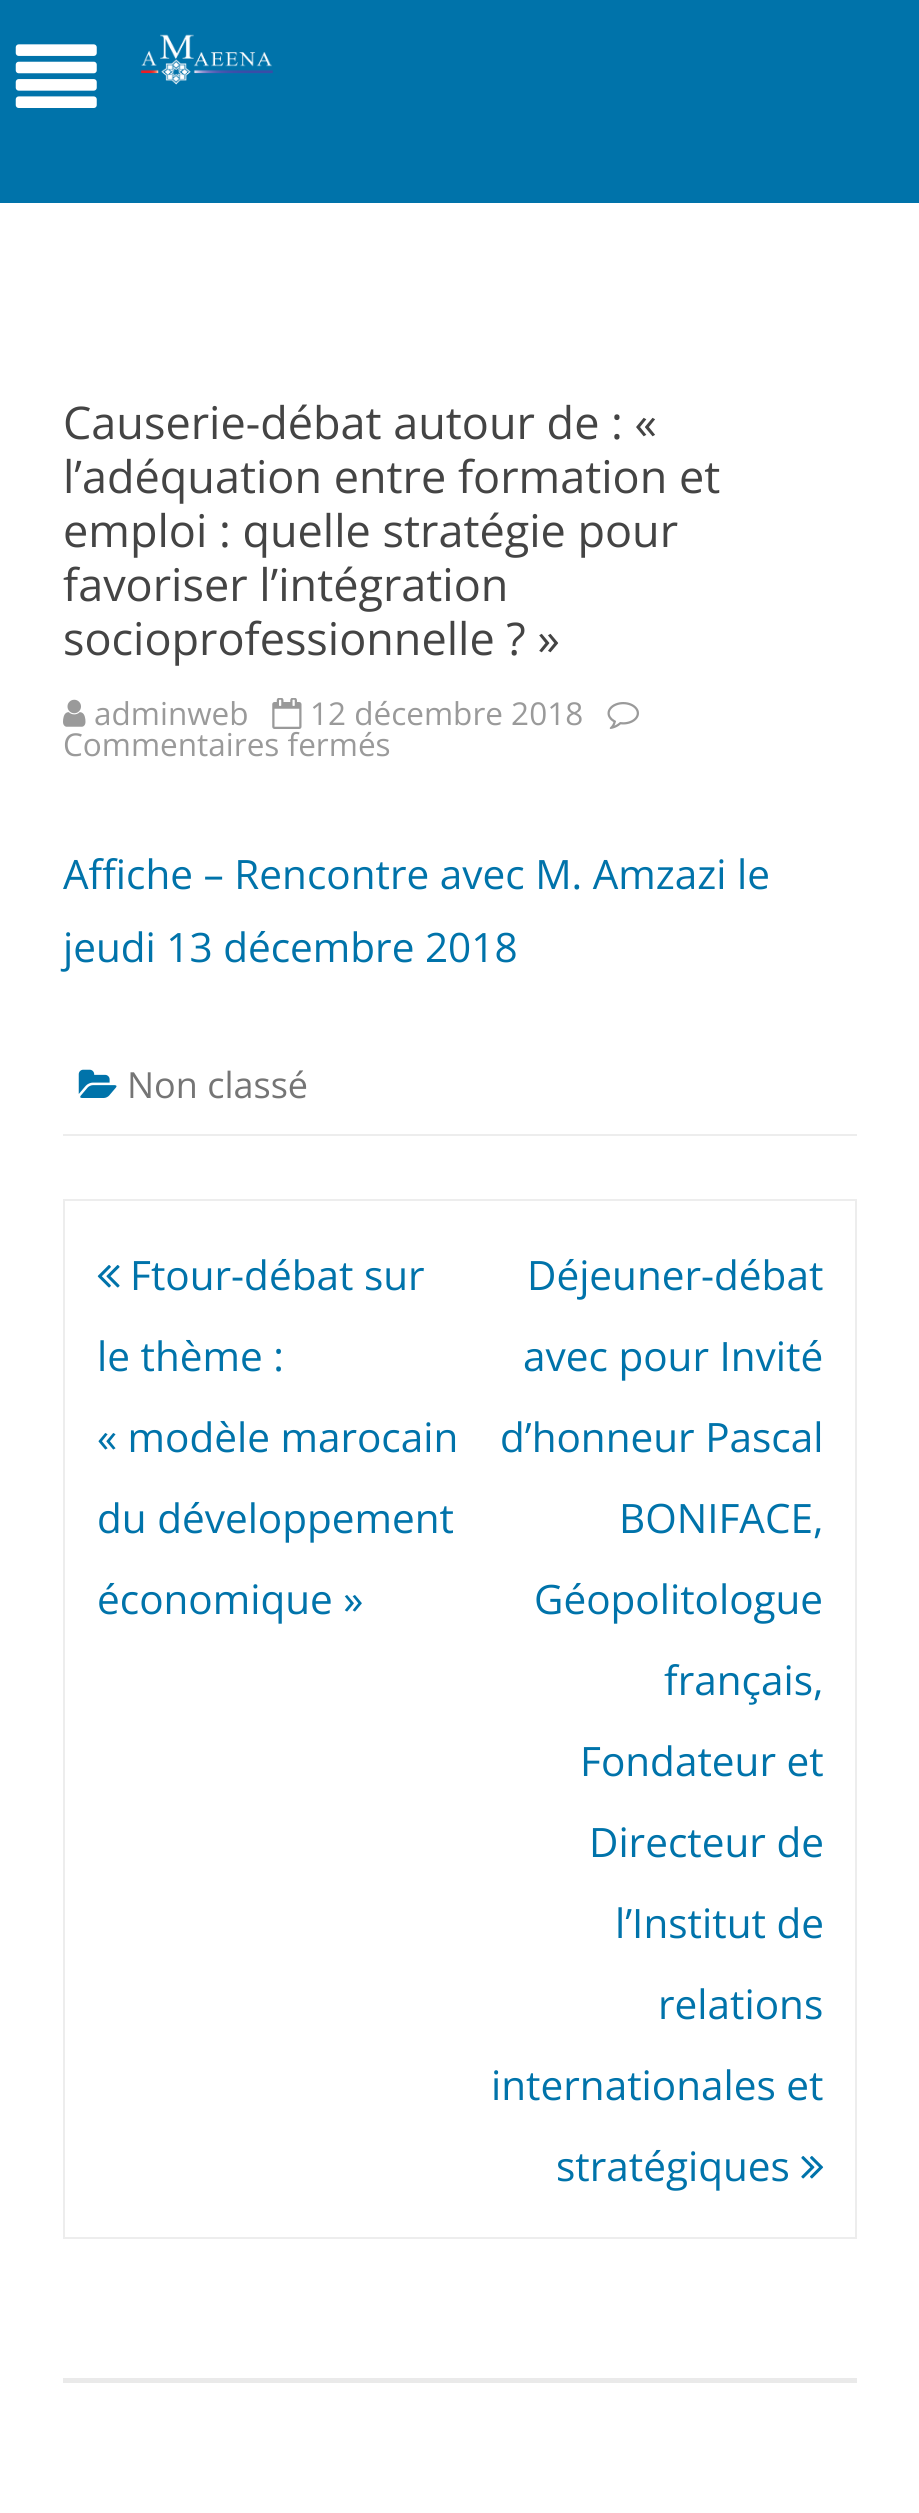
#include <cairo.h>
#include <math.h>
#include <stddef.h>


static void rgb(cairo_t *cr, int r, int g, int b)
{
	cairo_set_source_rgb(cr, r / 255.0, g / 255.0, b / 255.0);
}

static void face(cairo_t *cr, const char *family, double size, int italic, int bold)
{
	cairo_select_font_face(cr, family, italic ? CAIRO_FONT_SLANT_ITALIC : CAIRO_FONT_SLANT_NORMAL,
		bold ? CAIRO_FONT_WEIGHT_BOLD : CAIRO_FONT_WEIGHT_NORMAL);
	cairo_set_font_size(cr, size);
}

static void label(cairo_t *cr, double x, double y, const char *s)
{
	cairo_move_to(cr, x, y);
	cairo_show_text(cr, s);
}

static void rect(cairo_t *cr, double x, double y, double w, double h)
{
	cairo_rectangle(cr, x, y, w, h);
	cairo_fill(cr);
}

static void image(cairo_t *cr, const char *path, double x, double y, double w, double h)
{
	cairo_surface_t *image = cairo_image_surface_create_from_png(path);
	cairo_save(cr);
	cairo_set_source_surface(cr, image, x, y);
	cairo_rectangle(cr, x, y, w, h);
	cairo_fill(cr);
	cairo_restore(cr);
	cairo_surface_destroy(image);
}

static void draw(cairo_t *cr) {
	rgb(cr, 255, 255, 255);
	cairo_paint(cr);
	rgb(cr, 0, 115, 170);
	rect(cr, 0, 0, 919, 203);
	image(cr, "image0.png", 15, 44, 82, 64);
	image(cr, "image1.png", 140, 34, 133, 51);
	rgb(cr, 237, 237, 237);
	rect(cr, 63, 1134, 794, 2);
	face(cr, "Open Sans", 45, 0, 0);
	rgb(cr, 68, 68, 68);
	label(cr, 63, 439, "Causerie-débat autour de : «");
	label(cr, 63, 493, "l’adéquation entre formation et");
	label(cr, 63, 547, "emploi : quelle stratégie pour");
	label(cr, 63, 601, "favoriser l’intégration");
	label(cr, 63, 655, "socioprofessionnelle ? »");
	image(cr, "image2.png", 63, 699, 23, 28);
	face(cr, "Open Sans", 31.5, 0, 0);
	rgb(cr, 154, 154, 154);
	label(cr, 94, 725, "adminweb");
	image(cr, "image3.png", 272, 698, 30, 31);
	label(cr, 310, 725, "12 décembre 2018");
	image(cr, "image4.png", 607, 702, 32, 27);
	label(cr, 63, 756, "Commentaires fermés");
	face(cr, "Open Sans", 40.5, 0, 0);
	rgb(cr, 0, 115, 170);
	label(cr, 63, 889, "Affiche – Rencontre avec M. Amzazi le");
	label(cr, 63, 962, "jeudi 13 décembre 2018");
	image(cr, "image5.png", 78, 1069, 39, 29);
	face(cr, "Open Sans", 36, 0, 0);
	rgb(cr, 117, 117, 117);
	label(cr, 127, 1098, "Non classé");
	cairo_rectangle(cr, 64, 1200, 792, 1038);
	rgb(cr, 237, 237, 237);
	cairo_stroke(cr);
	image(cr, "image6.png", 97, 1265, 23, 23);
	face(cr, "Open Sans", 40.5, 0, 0);
	rgb(cr, 0, 115, 170);
	label(cr, 130, 1290, "Ftour-débat sur");
	label(cr, 97, 1371, "le thème :");
	label(cr, 97, 1452, "« modèle marocain");
	label(cr, 97, 1533, "du développement");
	label(cr, 97, 1614, "économique »");
	label(cr, 527, 1290, "Déjeuner-débat");
	label(cr, 523, 1371, "avec pour Invité");
	label(cr, 500, 1452, "d’honneur Pascal");
	label(cr, 619, 1533, "BONIFACE,");
	label(cr, 534, 1614, "Géopolitologue");
	label(cr, 664, 1695, "français,");
	label(cr, 580, 1776, "Fondateur et");
	label(cr, 589, 1857, "Directeur de");
	label(cr, 615, 1938, "l’Institut de");
	label(cr, 658, 2019, "relations");
	label(cr, 491, 2100, "internationales et");
	label(cr, 556, 2181, "stratégiques");
	image(cr, "image7.png", 801, 2156, 23, 23);
	rgb(cr, 234, 234, 234);
	rect(cr, 63, 2378, 794, 5);
}

int main(void) {
	cairo_surface_t *surface = cairo_image_surface_create(CAIRO_FORMAT_RGB24, 919, 2513);
	cairo_t *cr = cairo_create(surface);
	cairo_font_options_t *options = cairo_font_options_create();
	cairo_font_options_set_hint_metrics(options, CAIRO_HINT_METRICS_OFF);
	cairo_font_options_set_hint_style(options, CAIRO_HINT_STYLE_NONE);
	cairo_set_font_options(cr, options);
	cairo_set_miter_limit(cr, 4);
	draw(cr);
	cairo_surface_write_to_png(surface, "render.png");
	cairo_font_options_destroy(options);
	cairo_destroy(cr);
	cairo_surface_destroy(surface);
	return 0;
}
